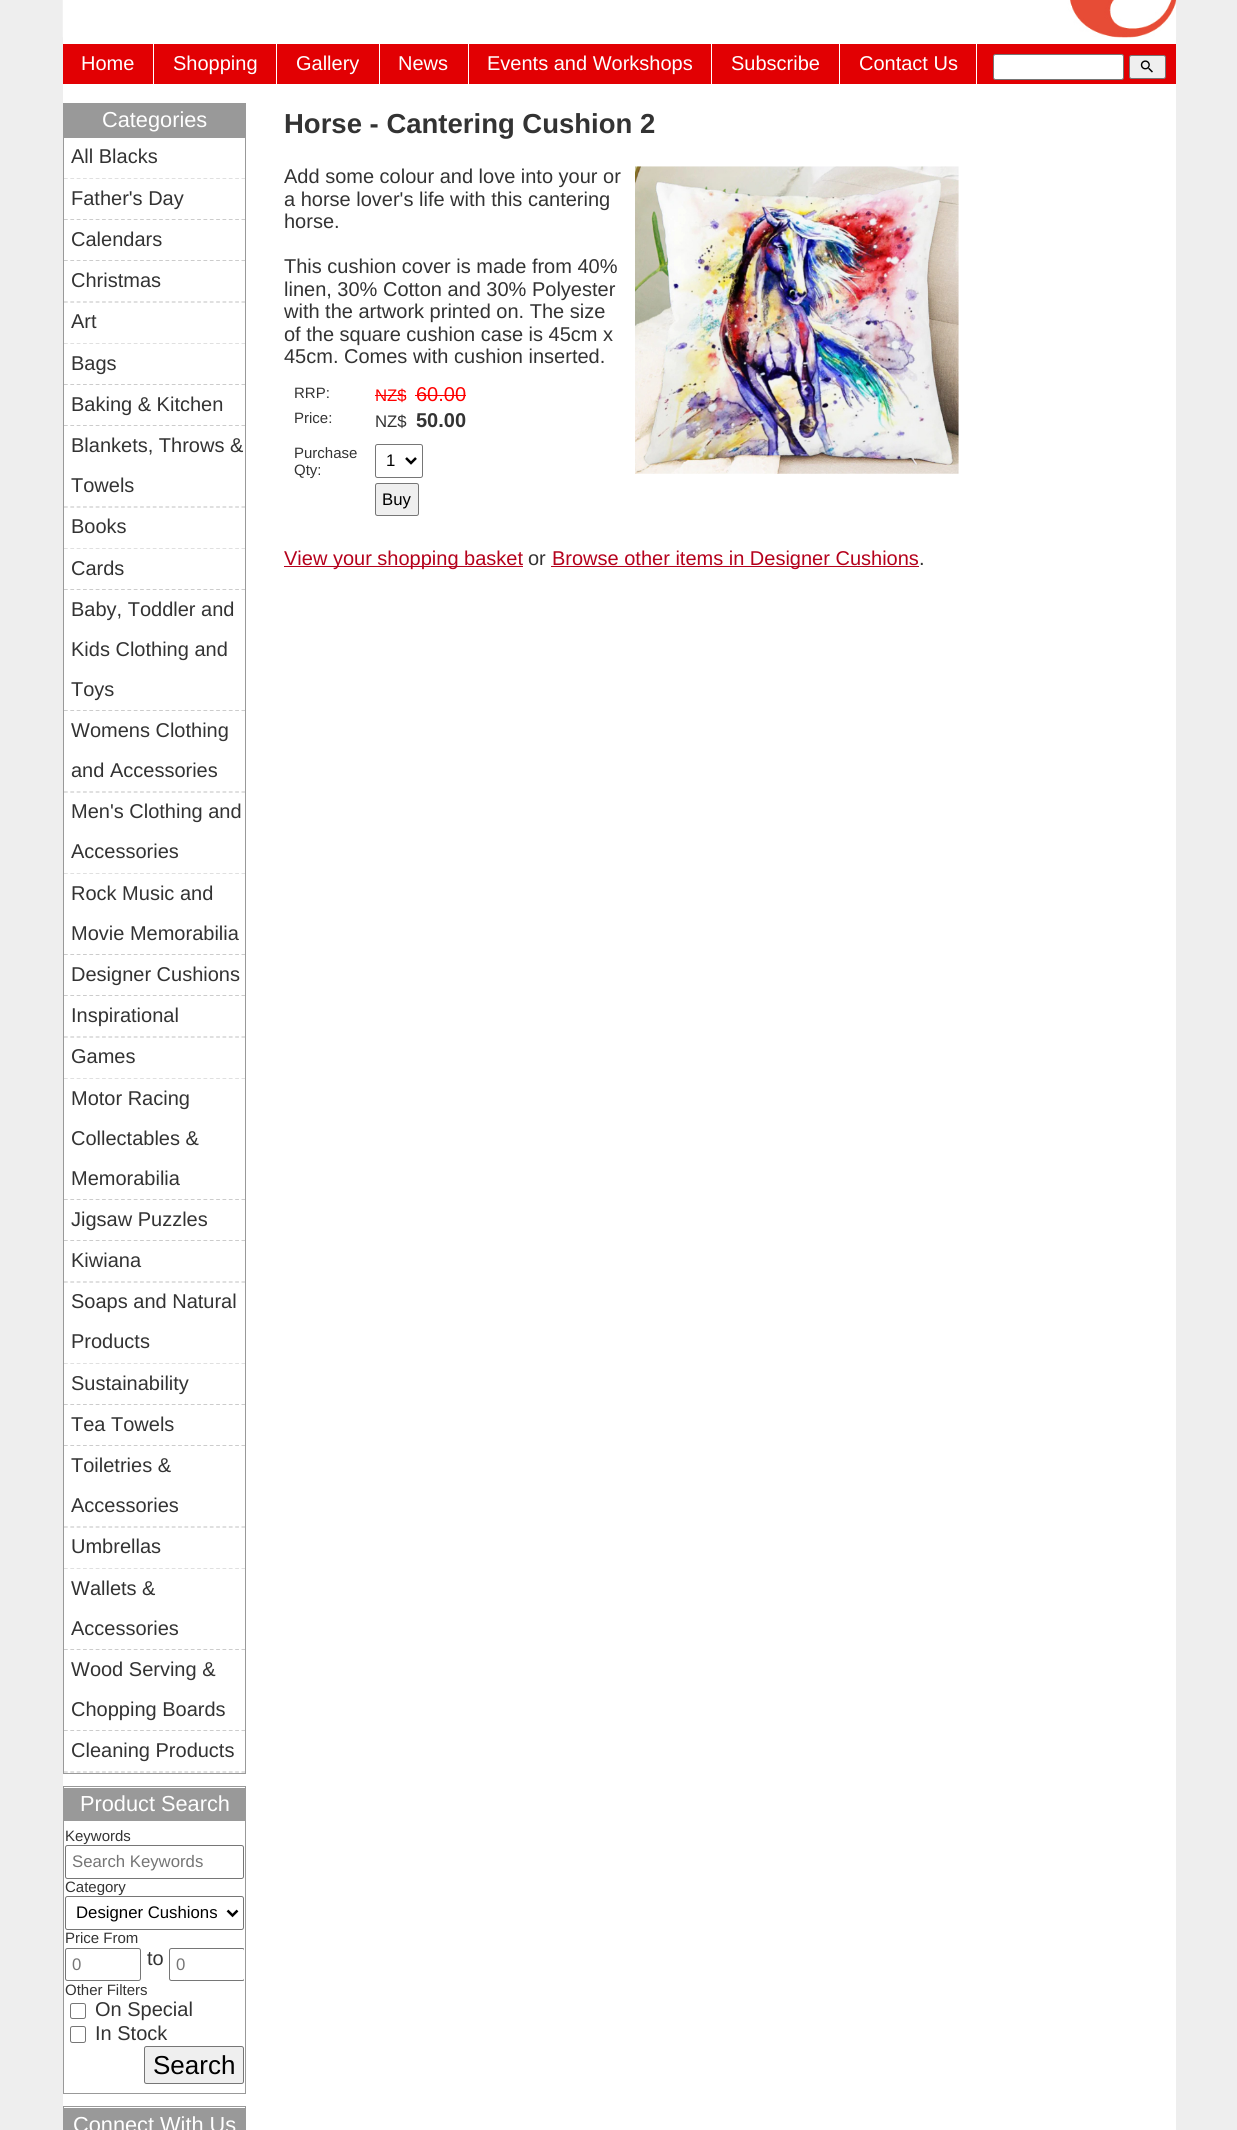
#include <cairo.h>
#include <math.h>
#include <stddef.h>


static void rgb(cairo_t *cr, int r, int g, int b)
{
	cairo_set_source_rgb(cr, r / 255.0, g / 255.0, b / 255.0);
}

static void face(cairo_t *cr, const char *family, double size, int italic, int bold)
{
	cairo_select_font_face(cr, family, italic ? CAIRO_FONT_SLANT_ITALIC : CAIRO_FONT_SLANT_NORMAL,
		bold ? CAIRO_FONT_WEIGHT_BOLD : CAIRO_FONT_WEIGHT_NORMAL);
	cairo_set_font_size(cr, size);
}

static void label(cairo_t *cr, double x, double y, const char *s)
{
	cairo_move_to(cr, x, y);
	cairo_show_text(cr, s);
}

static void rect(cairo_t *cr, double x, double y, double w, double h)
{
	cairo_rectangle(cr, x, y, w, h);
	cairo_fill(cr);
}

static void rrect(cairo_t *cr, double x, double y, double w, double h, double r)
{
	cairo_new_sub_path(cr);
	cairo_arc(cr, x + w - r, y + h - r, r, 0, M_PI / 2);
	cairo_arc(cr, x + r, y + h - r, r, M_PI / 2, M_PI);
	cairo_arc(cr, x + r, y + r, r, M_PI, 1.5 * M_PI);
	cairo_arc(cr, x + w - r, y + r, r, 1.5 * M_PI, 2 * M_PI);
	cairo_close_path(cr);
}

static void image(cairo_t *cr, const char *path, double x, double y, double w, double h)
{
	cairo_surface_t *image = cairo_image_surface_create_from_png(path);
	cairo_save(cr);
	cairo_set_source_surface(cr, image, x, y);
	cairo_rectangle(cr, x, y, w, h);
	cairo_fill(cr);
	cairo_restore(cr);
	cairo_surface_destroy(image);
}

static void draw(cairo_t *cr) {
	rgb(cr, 238, 238, 238);
	cairo_paint(cr);
	rgb(cr, 255, 255, 255);
	rect(cr, 63, 37, 1113, 2093);
	image(cr, "image0.png", 62, 0, 1115, 38);
	rgb(cr, 226, 0, 3);
	rect(cr, 63, 44, 1113, 40);
	rgb(cr, 255, 255, 255);
	rect(cr, 153, 44, 1, 40);
	face(cr, "Liberation Sans", 20, 0, 0);
	label(cr, 81, 70, "Home");
	rect(cr, 276, 44, 1, 40);
	label(cr, 173, 70, "Shopping");
	rect(cr, 379, 44, 1, 40);
	label(cr, 296, 70, "Gallery");
	rect(cr, 468, 44, 1, 40);
	label(cr, 398, 70, "News");
	rect(cr, 711, 44, 1, 40);
	label(cr, 487, 70, "Events and Workshops");
	rect(cr, 839, 44, 1, 40);
	label(cr, 731, 70, "Subscribe");
	rect(cr, 976, 44, 1, 40);
	label(cr, 859, 70, "Contact Us");
	rrect(cr, 993.5, 54.5, 130, 25, 2);
	cairo_fill_preserve(cr);
	rgb(cr, 118, 118, 118);
	cairo_set_line_width(cr, 1);
	cairo_stroke(cr);
	rgb(cr, 239, 239, 239);
	rrect(cr, 1129.5, 55.5, 36, 23, 2);
	cairo_fill_preserve(cr);
	rgb(cr, 118, 118, 118);
	cairo_stroke(cr);
	image(cr, "image1.png", 1140, 60, 13, 13);
	cairo_rectangle(cr, 63.5, 103.5, 182, 1670);
	rgb(cr, 153, 153, 153);
	cairo_stroke(cr);
	rect(cr, 64, 104, 181, 34);
	face(cr, "Liberation Sans", 21.75, 0, 0);
	rgb(cr, 255, 255, 255);
	label(cr, 102, 127, "Categories");
	cairo_new_path(cr);
	cairo_move_to(cr, 64, 178);
	cairo_line_to(cr, 245, 178);
	rgb(cr, 204, 204, 204);
	cairo_set_line_width(cr, 1.2);
	cairo_set_dash(cr, (double[]){3.75, 2.59}, 2, 0);
	cairo_stroke(cr);
	rgb(cr, 255, 255, 255);
	rect(cr, 64, 177, 181, 1);
	face(cr, "Liberation Sans", 20, 0, 0);
	rgb(cr, 51, 51, 51);
	label(cr, 71, 163, "All Blacks");
	cairo_new_path(cr);
	cairo_move_to(cr, 64, 219.5);
	cairo_line_to(cr, 245, 219.5);
	rgb(cr, 204, 204, 204);
	cairo_stroke(cr);
	rgb(cr, 255, 255, 255);
	rect(cr, 64, 218, 181, 1);
	rgb(cr, 51, 51, 51);
	label(cr, 71, 205, "Father's Day");
	cairo_new_path(cr);
	cairo_move_to(cr, 64, 260.5);
	cairo_line_to(cr, 245, 260.5);
	rgb(cr, 204, 204, 204);
	cairo_stroke(cr);
	rgb(cr, 255, 255, 255);
	rect(cr, 64, 220, 181, 40);
	rgb(cr, 51, 51, 51);
	label(cr, 71, 246, "Calendars");
	cairo_new_path(cr);
	cairo_move_to(cr, 64, 302);
	cairo_line_to(cr, 245, 302);
	rgb(cr, 204, 204, 204);
	cairo_stroke(cr);
	rgb(cr, 255, 255, 255);
	rect(cr, 64, 261, 181, 1);
	rgb(cr, 51, 51, 51);
	label(cr, 71, 287, "Christmas");
	cairo_new_path(cr);
	cairo_move_to(cr, 64, 343);
	cairo_line_to(cr, 245, 343);
	rgb(cr, 204, 204, 204);
	cairo_stroke(cr);
	rgb(cr, 255, 255, 255);
	rect(cr, 64, 342, 181, 1);
	rgb(cr, 51, 51, 51);
	label(cr, 71, 328, "Art");
	cairo_new_path(cr);
	cairo_move_to(cr, 64, 384.5);
	cairo_line_to(cr, 245, 384.5);
	rgb(cr, 204, 204, 204);
	cairo_stroke(cr);
	rgb(cr, 255, 255, 255);
	rect(cr, 64, 383, 181, 1);
	rgb(cr, 51, 51, 51);
	label(cr, 71, 370, "Bags");
	cairo_new_path(cr);
	cairo_move_to(cr, 64, 425.5);
	cairo_line_to(cr, 245, 425.5);
	rgb(cr, 204, 204, 204);
	cairo_stroke(cr);
	rgb(cr, 255, 255, 255);
	rect(cr, 64, 385, 181, 40);
	rgb(cr, 51, 51, 51);
	label(cr, 71, 411, "Baking & Kitchen");
	cairo_new_path(cr);
	cairo_move_to(cr, 64, 507);
	cairo_line_to(cr, 245, 507);
	rgb(cr, 204, 204, 204);
	cairo_stroke(cr);
	rgb(cr, 255, 255, 255);
	rect(cr, 64, 426, 181, 1);
	rgb(cr, 51, 51, 51);
	label(cr, 71, 452, "Blankets, Throws &");
	label(cr, 71, 492, "Towels");
	cairo_new_path(cr);
	cairo_move_to(cr, 64, 548);
	cairo_line_to(cr, 245, 548);
	rgb(cr, 204, 204, 204);
	cairo_stroke(cr);
	rgb(cr, 255, 255, 255);
	rect(cr, 64, 547, 181, 1);
	rgb(cr, 51, 51, 51);
	label(cr, 71, 533, "Books");
	cairo_new_path(cr);
	cairo_move_to(cr, 64, 589.5);
	cairo_line_to(cr, 245, 589.5);
	rgb(cr, 204, 204, 204);
	cairo_stroke(cr);
	rgb(cr, 255, 255, 255);
	rect(cr, 64, 588, 181, 1);
	rgb(cr, 51, 51, 51);
	label(cr, 71, 575, "Cards");
	cairo_new_path(cr);
	cairo_move_to(cr, 64, 710.5);
	cairo_line_to(cr, 245, 710.5);
	rgb(cr, 204, 204, 204);
	cairo_stroke(cr);
	rgb(cr, 255, 255, 255);
	rect(cr, 64, 590, 181, 120);
	rgb(cr, 51, 51, 51);
	label(cr, 71, 616, "Baby, Toddler and");
	label(cr, 71, 656, "Kids Clothing and");
	label(cr, 71, 696, "Toys");
	cairo_new_path(cr);
	cairo_move_to(cr, 64, 792);
	cairo_line_to(cr, 245, 792);
	rgb(cr, 204, 204, 204);
	cairo_stroke(cr);
	rgb(cr, 255, 255, 255);
	rect(cr, 64, 711, 181, 1);
	rgb(cr, 51, 51, 51);
	label(cr, 71, 737, "Womens Clothing");
	label(cr, 71, 777, "and Accessories");
	cairo_new_path(cr);
	cairo_move_to(cr, 64, 873);
	cairo_line_to(cr, 245, 873);
	rgb(cr, 204, 204, 204);
	cairo_stroke(cr);
	rgb(cr, 255, 255, 255);
	rect(cr, 64, 872, 181, 1);
	rgb(cr, 51, 51, 51);
	label(cr, 71, 818, "Men's Clothing and");
	label(cr, 71, 858, "Accessories");
	cairo_new_path(cr);
	cairo_move_to(cr, 64, 954.5);
	cairo_line_to(cr, 245, 954.5);
	rgb(cr, 204, 204, 204);
	cairo_stroke(cr);
	rgb(cr, 255, 255, 255);
	rect(cr, 64, 953, 181, 1);
	rgb(cr, 51, 51, 51);
	label(cr, 71, 900, "Rock Music and");
	label(cr, 71, 940, "Movie Memorabilia");
	cairo_new_path(cr);
	cairo_move_to(cr, 64, 995.5);
	cairo_line_to(cr, 245, 995.5);
	rgb(cr, 204, 204, 204);
	cairo_stroke(cr);
	rgb(cr, 255, 255, 255);
	rect(cr, 64, 955, 181, 40);
	rgb(cr, 51, 51, 51);
	label(cr, 71, 981, "Designer Cushions");
	cairo_new_path(cr);
	cairo_move_to(cr, 64, 1037);
	cairo_line_to(cr, 245, 1037);
	rgb(cr, 204, 204, 204);
	cairo_stroke(cr);
	rgb(cr, 255, 255, 255);
	rect(cr, 64, 996, 181, 1);
	rgb(cr, 51, 51, 51);
	label(cr, 71, 1022, "Inspirational");
	cairo_new_path(cr);
	cairo_move_to(cr, 64, 1078);
	cairo_line_to(cr, 245, 1078);
	rgb(cr, 204, 204, 204);
	cairo_stroke(cr);
	rgb(cr, 255, 255, 255);
	rect(cr, 64, 1077, 181, 1);
	rgb(cr, 51, 51, 51);
	label(cr, 71, 1063, "Games");
	cairo_new_path(cr);
	cairo_move_to(cr, 64, 1199.5);
	cairo_line_to(cr, 245, 1199.5);
	rgb(cr, 204, 204, 204);
	cairo_stroke(cr);
	rgb(cr, 255, 255, 255);
	rect(cr, 64, 1198, 181, 1);
	rgb(cr, 51, 51, 51);
	label(cr, 71, 1105, "Motor Racing");
	label(cr, 71, 1145, "Collectables &");
	label(cr, 71, 1185, "Memorabilia");
	cairo_new_path(cr);
	cairo_move_to(cr, 64, 1240.5);
	cairo_line_to(cr, 245, 1240.5);
	rgb(cr, 204, 204, 204);
	cairo_stroke(cr);
	rgb(cr, 255, 255, 255);
	rect(cr, 64, 1200, 181, 40);
	rgb(cr, 51, 51, 51);
	label(cr, 71, 1226, "Jigsaw Puzzles");
	cairo_new_path(cr);
	cairo_move_to(cr, 64, 1282);
	cairo_line_to(cr, 245, 1282);
	rgb(cr, 204, 204, 204);
	cairo_stroke(cr);
	rgb(cr, 255, 255, 255);
	rect(cr, 64, 1241, 181, 1);
	rgb(cr, 51, 51, 51);
	label(cr, 71, 1267, "Kiwiana");
	cairo_new_path(cr);
	cairo_move_to(cr, 64, 1363);
	cairo_line_to(cr, 245, 1363);
	rgb(cr, 204, 204, 204);
	cairo_stroke(cr);
	rgb(cr, 255, 255, 255);
	rect(cr, 64, 1362, 181, 1);
	rgb(cr, 51, 51, 51);
	label(cr, 71, 1308, "Soaps and Natural");
	label(cr, 71, 1348, "Products");
	cairo_new_path(cr);
	cairo_move_to(cr, 64, 1404.5);
	cairo_line_to(cr, 245, 1404.5);
	rgb(cr, 204, 204, 204);
	cairo_stroke(cr);
	rgb(cr, 255, 255, 255);
	rect(cr, 64, 1403, 181, 1);
	rgb(cr, 51, 51, 51);
	label(cr, 71, 1390, "Sustainability");
	cairo_new_path(cr);
	cairo_move_to(cr, 64, 1445.5);
	cairo_line_to(cr, 245, 1445.5);
	rgb(cr, 204, 204, 204);
	cairo_stroke(cr);
	rgb(cr, 255, 255, 255);
	rect(cr, 64, 1405, 181, 40);
	rgb(cr, 51, 51, 51);
	label(cr, 71, 1431, "Tea Towels");
	cairo_new_path(cr);
	cairo_move_to(cr, 64, 1527);
	cairo_line_to(cr, 245, 1527);
	rgb(cr, 204, 204, 204);
	cairo_stroke(cr);
	rgb(cr, 255, 255, 255);
	rect(cr, 64, 1446, 181, 1);
	rgb(cr, 51, 51, 51);
	label(cr, 71, 1472, "Toiletries &");
	label(cr, 71, 1512, "Accessories");
	cairo_new_path(cr);
	cairo_move_to(cr, 64, 1568);
	cairo_line_to(cr, 245, 1568);
	rgb(cr, 204, 204, 204);
	cairo_stroke(cr);
	rgb(cr, 255, 255, 255);
	rect(cr, 64, 1567, 181, 1);
	rgb(cr, 51, 51, 51);
	label(cr, 71, 1553, "Umbrellas");
	cairo_new_path(cr);
	cairo_move_to(cr, 64, 1649.5);
	cairo_line_to(cr, 245, 1649.5);
	rgb(cr, 204, 204, 204);
	cairo_stroke(cr);
	rgb(cr, 255, 255, 255);
	rect(cr, 64, 1648, 181, 1);
	rgb(cr, 51, 51, 51);
	label(cr, 71, 1595, "Wallets &");
	label(cr, 71, 1635, "Accessories");
	cairo_new_path(cr);
	cairo_move_to(cr, 64, 1730.5);
	cairo_line_to(cr, 245, 1730.5);
	rgb(cr, 204, 204, 204);
	cairo_stroke(cr);
	rgb(cr, 255, 255, 255);
	rect(cr, 64, 1650, 181, 80);
	rgb(cr, 51, 51, 51);
	label(cr, 71, 1676, "Wood Serving &");
	label(cr, 71, 1716, "Chopping Boards");
	cairo_new_path(cr);
	cairo_move_to(cr, 64, 1772);
	cairo_line_to(cr, 245, 1772);
	rgb(cr, 204, 204, 204);
	cairo_stroke(cr);
	rgb(cr, 255, 255, 255);
	rect(cr, 64, 1731, 181, 1);
	rgb(cr, 51, 51, 51);
	label(cr, 71, 1757, "Cleaning Products");
	cairo_rectangle(cr, 63.5, 1786.5, 182, 307);
	rgb(cr, 153, 153, 153);
	cairo_set_line_width(cr, 1);
	cairo_set_dash(cr, NULL, 0, 0);
	cairo_stroke(cr);
	rect(cr, 64, 1788, 181, 33);
	face(cr, "Liberation Sans", 21.75, 0, 0);
	rgb(cr, 255, 255, 255);
	label(cr, 80, 1811, "Product Search");
	face(cr, "Liberation Sans", 15, 0, 0);
	rgb(cr, 51, 51, 51);
	label(cr, 65, 1841, "Keywords");
	rrect(cr, 65.5, 1845.5, 178, 33, 2);
	rgb(cr, 118, 118, 118);
	cairo_stroke(cr);
	face(cr, "Liberation Sans", 16.75, 0, 0);
	rgb(cr, 117, 117, 117);
	label(cr, 72, 1867, "Search Keywords");
	face(cr, "Liberation Sans", 15, 0, 0);
	rgb(cr, 51, 51, 51);
	label(cr, 65, 1892, "Category");
	rrect(cr, 65.5, 1896.5, 178, 33, 2);
	rgb(cr, 118, 118, 118);
	cairo_stroke(cr);
	cairo_new_path(cr);
	cairo_move_to(cr, 227.5, 1910.5);
	cairo_line_to(cr, 232.5, 1915.5);
	cairo_line_to(cr, 237.5, 1910.5);
	rgb(cr, 0, 0, 0);
	cairo_set_line_width(cr, 2.5);
	cairo_stroke(cr);
	face(cr, "Liberation Sans", 16.75, 0, 0);
	label(cr, 76, 1918, "Designer Cushions");
	face(cr, "Liberation Sans", 15, 0, 0);
	rgb(cr, 51, 51, 51);
	label(cr, 65, 1943, "Price From");
	rrect(cr, 65.5, 1948.5, 75, 32, 2);
	rgb(cr, 118, 118, 118);
	cairo_set_line_width(cr, 1);
	cairo_stroke(cr);
	face(cr, "Liberation Sans", 16.75, 0, 0);
	rgb(cr, 117, 117, 117);
	label(cr, 72, 1970, "0");
	face(cr, "Liberation Sans", 20, 0, 0);
	rgb(cr, 51, 51, 51);
	label(cr, 147, 1965, "to");
	cairo_save(cr);
	cairo_rectangle(cr, 65, 1930, 179, 51);
	cairo_clip(cr);
	rrect(cr, 169.5, 1948.5, 75, 32, 2);
	rgb(cr, 118, 118, 118);
	cairo_stroke(cr);
	cairo_restore(cr);
	face(cr, "Liberation Sans", 16.75, 0, 0);
	rgb(cr, 117, 117, 117);
	label(cr, 176, 1970, "0");
	face(cr, "Liberation Sans", 15, 0, 0);
	rgb(cr, 51, 51, 51);
	label(cr, 65, 1995, "Other Filters");
	rrect(cr, 70.5, 2003.5, 15, 15, 2);
	rgb(cr, 118, 118, 118);
	cairo_stroke(cr);
	face(cr, "Liberation Sans", 20, 0, 0);
	rgb(cr, 51, 51, 51);
	label(cr, 95, 2016, "On Special");
	rrect(cr, 70.5, 2026.5, 15, 16, 2);
	rgb(cr, 118, 118, 118);
	cairo_stroke(cr);
	rgb(cr, 51, 51, 51);
	label(cr, 95, 2040, "In Stock");
	rgb(cr, 239, 239, 239);
	rrect(cr, 144.5, 2046.5, 99, 37, 2);
	cairo_fill_preserve(cr);
	rgb(cr, 118, 118, 118);
	cairo_stroke(cr);
	face(cr, "Liberation Sans", 26, 0, 0);
	rgb(cr, 0, 0, 0);
	label(cr, 153, 2074, "Search");
	cairo_rectangle(cr, 63.5, 2106.5, 182, 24);
	rgb(cr, 153, 153, 153);
	cairo_stroke(cr);
	rect(cr, 64, 2108, 181, 22);
	face(cr, "Liberation Sans", 21.75, 0, 0);
	rgb(cr, 255, 255, 255);
	label(cr, 73, 2132, "Connect With Us");
	face(cr, "Liberation Sans", 27.5, 0, 1);
	rgb(cr, 51, 51, 51);
	label(cr, 284, 133, "Horse - Cantering Cushion 2");
	face(cr, "Liberation Sans", 20, 0, 0);
	label(cr, 284, 183, "Add some colour and love into your or");
	label(cr, 284, 206, "a horse lover's life with this cantering");
	label(cr, 284, 228, "horse.");
	label(cr, 284, 273, "This cushion cover is made from 40%");
	label(cr, 284, 296, "linen, 30% Cotton and 30% Polyester");
	label(cr, 284, 318, "with the artwork printed on. The size");
	label(cr, 284, 341, "of the square cushion case is 45cm x");
	label(cr, 284, 363, "45cm. Comes with cushion inserted.");
	face(cr, "Liberation Sans", 15, 0, 0);
	label(cr, 294, 398, "RRP:");
	face(cr, "Liberation Sans", 16.75, 0, 0);
	rgb(cr, 255, 0, 0);
	label(cr, 375, 401, "NZ$");
	rect(cr, 375, 395, 31, 1);
	face(cr, "Liberation Sans", 20, 0, 0);
	label(cr, 416, 401, "60.00");
	rect(cr, 415, 395, 51, 1);
	face(cr, "Liberation Sans", 15, 0, 0);
	rgb(cr, 51, 51, 51);
	label(cr, 294, 423, "Price:");
	face(cr, "Liberation Sans", 16.75, 0, 0);
	label(cr, 375, 427, "NZ$");
	face(cr, "Liberation Sans", 20, 0, 1);
	label(cr, 416, 427, "50.00");
	face(cr, "Liberation Sans", 15, 0, 0);
	label(cr, 294, 458, "Purchase");
	label(cr, 294, 475, "Qty:");
	rrect(cr, 375.5, 444.5, 47, 33, 2);
	rgb(cr, 118, 118, 118);
	cairo_stroke(cr);
	cairo_new_path(cr);
	cairo_move_to(cr, 406, 458);
	cairo_line_to(cr, 411, 463);
	cairo_line_to(cr, 416, 458);
	rgb(cr, 0, 0, 0);
	cairo_set_line_width(cr, 2.5);
	cairo_stroke(cr);
	face(cr, "Liberation Sans", 16.75, 0, 0);
	label(cr, 386, 466, "1");
	rgb(cr, 239, 239, 239);
	rrect(cr, 375.5, 483.5, 43, 32, 2);
	cairo_fill_preserve(cr);
	rgb(cr, 118, 118, 118);
	cairo_set_line_width(cr, 1);
	cairo_stroke(cr);
	rgb(cr, 0, 0, 0);
	label(cr, 382, 505, "Buy");
	image(cr, "image2.png", 635, 166, 324, 308);
	rgb(cr, 181, 1, 28);
	rect(cr, 284, 566, 239, 1);
	face(cr, "Liberation Sans", 20, 0, 0);
	label(cr, 284, 565, "View your shopping basket");
	rgb(cr, 51, 51, 51);
	label(cr, 528, 565, "or");
	rgb(cr, 181, 1, 28);
	rect(cr, 551, 566, 368, 1);
	label(cr, 552, 565, "Browse other items in Designer Cushions");
	rgb(cr, 51, 51, 51);
	label(cr, 919, 565, ".");
}

int main(void) {
	cairo_surface_t *surface = cairo_image_surface_create(CAIRO_FORMAT_RGB24, 1237, 2130);
	cairo_t *cr = cairo_create(surface);
	cairo_font_options_t *options = cairo_font_options_create();
	cairo_font_options_set_hint_metrics(options, CAIRO_HINT_METRICS_OFF);
	cairo_font_options_set_hint_style(options, CAIRO_HINT_STYLE_NONE);
	cairo_set_font_options(cr, options);
	cairo_set_miter_limit(cr, 4);
	draw(cr);
	cairo_surface_write_to_png(surface, "render.png");
	cairo_font_options_destroy(options);
	cairo_destroy(cr);
	cairo_surface_destroy(surface);
	return 0;
}
